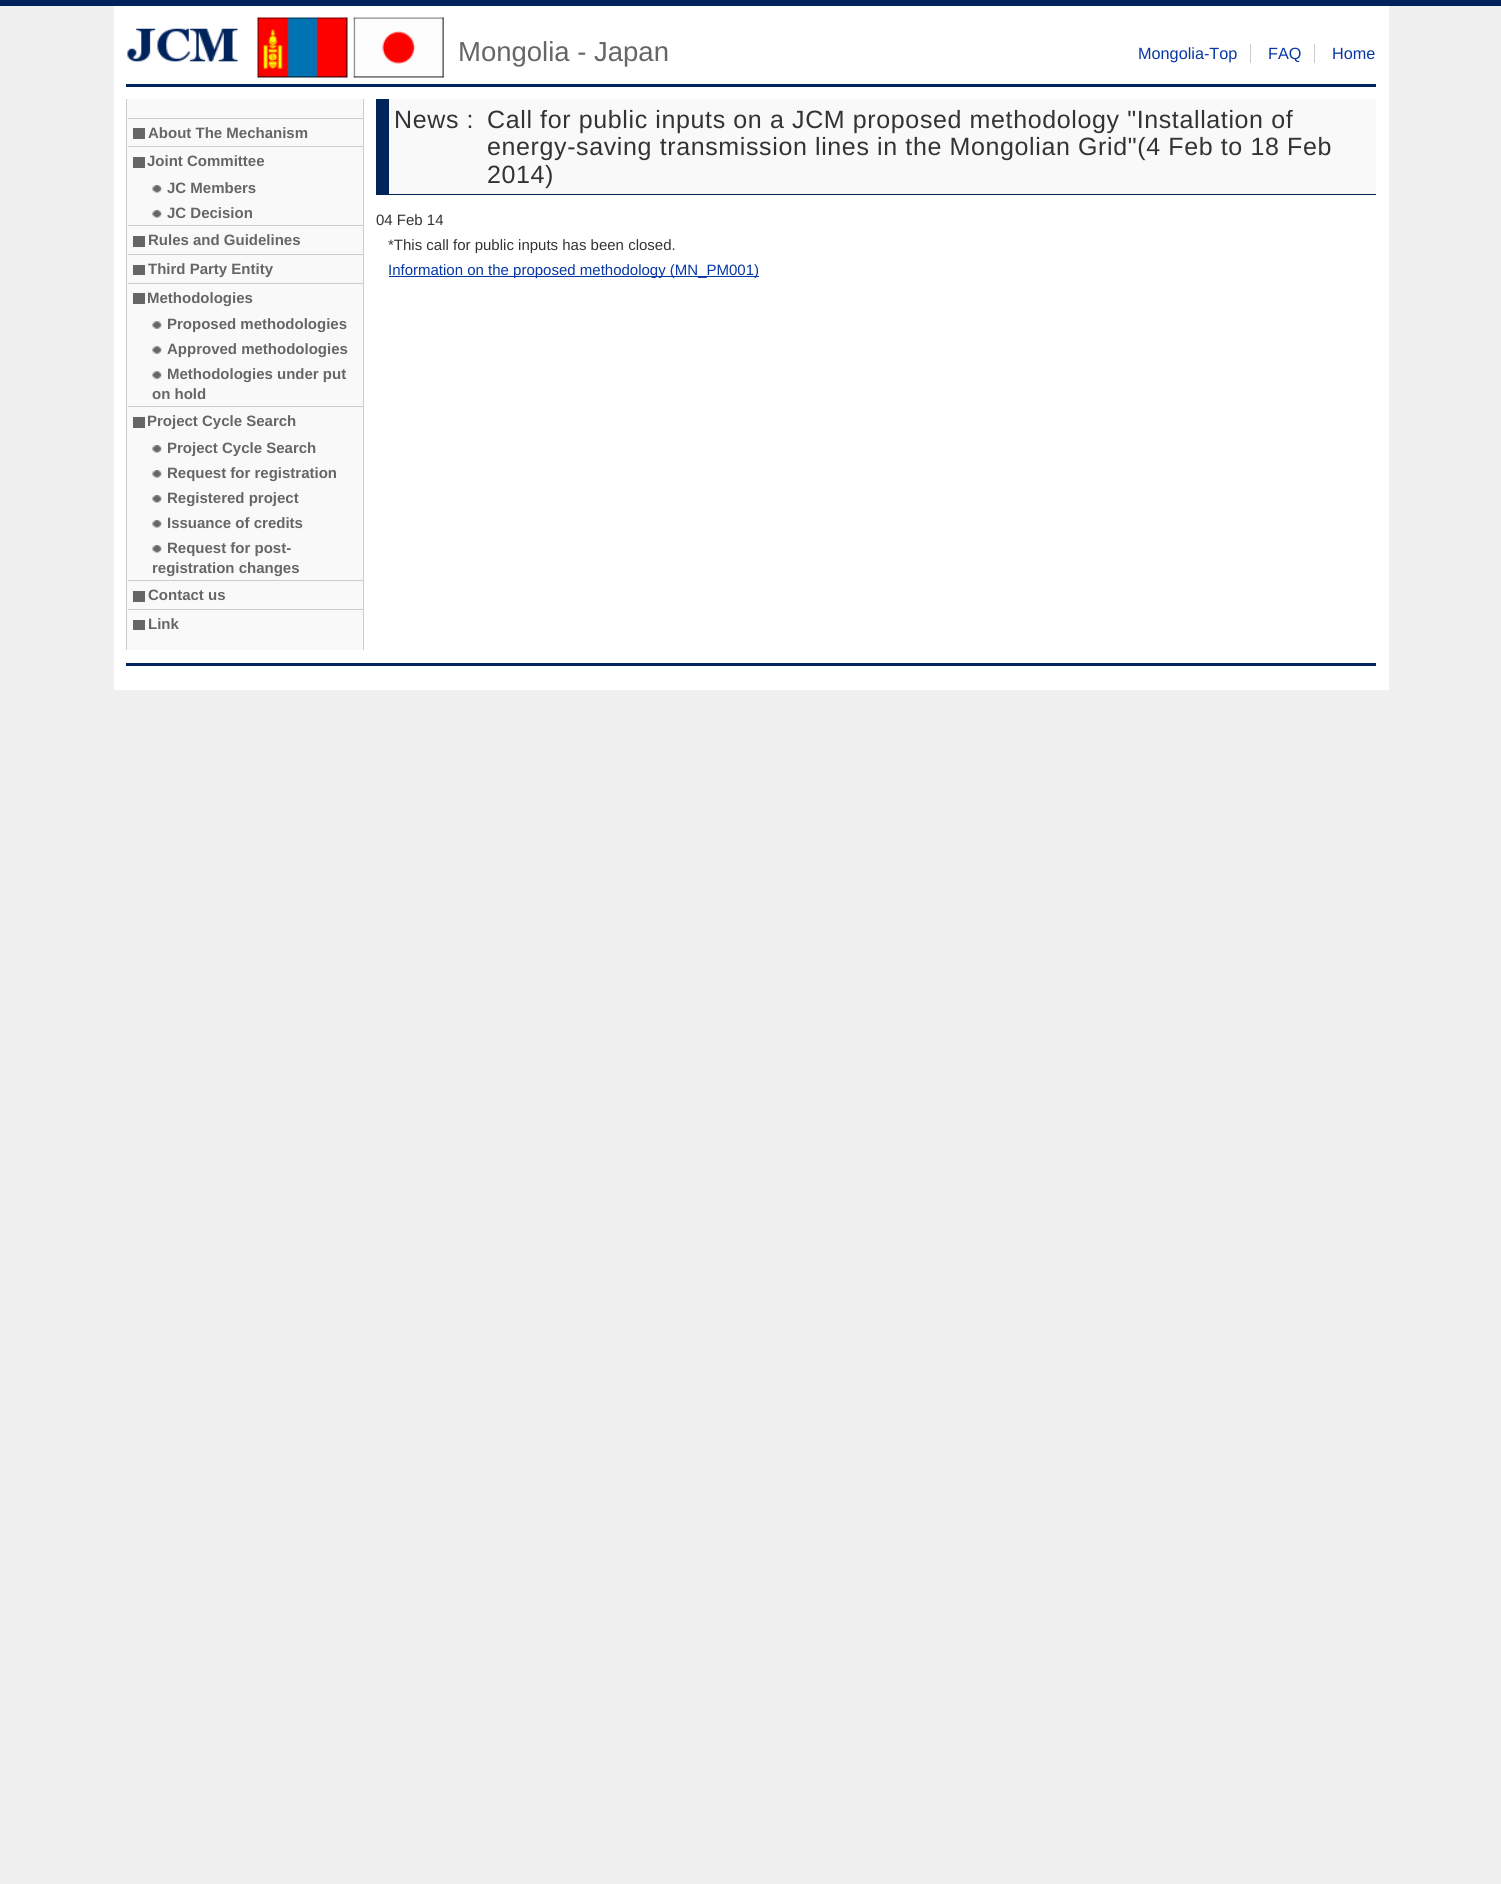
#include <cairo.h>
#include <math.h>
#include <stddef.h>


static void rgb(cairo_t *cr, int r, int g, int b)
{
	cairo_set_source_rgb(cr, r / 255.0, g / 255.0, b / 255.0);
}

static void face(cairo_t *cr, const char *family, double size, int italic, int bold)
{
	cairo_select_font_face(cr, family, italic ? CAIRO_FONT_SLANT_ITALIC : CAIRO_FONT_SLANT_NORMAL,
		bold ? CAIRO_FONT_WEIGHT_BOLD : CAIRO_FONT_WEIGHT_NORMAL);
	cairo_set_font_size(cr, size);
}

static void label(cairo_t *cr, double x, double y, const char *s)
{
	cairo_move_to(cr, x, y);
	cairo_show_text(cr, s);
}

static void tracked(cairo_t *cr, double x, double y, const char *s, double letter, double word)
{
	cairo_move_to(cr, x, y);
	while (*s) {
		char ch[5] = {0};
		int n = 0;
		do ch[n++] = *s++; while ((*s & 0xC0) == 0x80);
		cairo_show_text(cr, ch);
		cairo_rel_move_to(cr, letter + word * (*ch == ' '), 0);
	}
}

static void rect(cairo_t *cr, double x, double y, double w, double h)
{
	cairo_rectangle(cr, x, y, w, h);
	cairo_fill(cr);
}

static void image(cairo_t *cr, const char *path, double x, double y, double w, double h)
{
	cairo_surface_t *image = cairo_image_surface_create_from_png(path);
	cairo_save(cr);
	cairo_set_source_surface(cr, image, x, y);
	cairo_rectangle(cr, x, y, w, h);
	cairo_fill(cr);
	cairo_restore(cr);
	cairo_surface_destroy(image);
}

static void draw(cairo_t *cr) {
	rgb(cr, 240, 240, 240);
	cairo_paint(cr);
	rgb(cr, 0, 35, 91);
	rect(cr, 0, 0, 1501, 6);
	rgb(cr, 255, 255, 255);
	rect(cr, 114, 6, 1275, 684);
	rgb(cr, 0, 35, 91);
	rect(cr, 126, 84, 1250, 3);
	image(cr, "image0.png", 127, 17, 317, 61);
	face(cr, "Liberation Sans", 27.5, 0, 0);
	rgb(cr, 102, 102, 102);
	label(cr, 458, 61, "Mongolia - Japan");
	face(cr, "Liberation Sans", 16.25, 0, 0);
	rgb(cr, 6, 55, 165);
	label(cr, 1138, 59, "Mongolia-Top");
	rgb(cr, 204, 204, 204);
	rect(cr, 1250, 44, 1, 19);
	rgb(cr, 6, 55, 165);
	label(cr, 1268, 59, "FAQ");
	rgb(cr, 204, 204, 204);
	rect(cr, 1314, 44, 1, 19);
	rgb(cr, 6, 55, 165);
	label(cr, 1332, 59, "Home");
	rgb(cr, 249, 249, 249);
	rect(cr, 127, 99, 236, 551);
	rgb(cr, 204, 204, 204);
	rect(cr, 363, 99, 1, 551);
	rect(cr, 126, 99, 1, 551);
	rect(cr, 128, 118, 235, 1);
	rgb(cr, 102, 102, 102);
	rect(cr, 133, 128, 12, 11);
	face(cr, "Liberation Sans", 15, 0, 1);
	label(cr, 148, 138, "About The Mechanism");
	rgb(cr, 204, 204, 204);
	rect(cr, 128, 146, 235, 1);
	rgb(cr, 102, 102, 102);
	rect(cr, 133, 157, 12, 11);
	label(cr, 147, 166, "Joint Committee");
	image(cr, "image1.png", 152, 185, 10, 8);
	label(cr, 167, 193, "JC Members");
	image(cr, "image1.png", 152, 210, 10, 8);
	label(cr, 167, 218, "JC Decision");
	rgb(cr, 204, 204, 204);
	rect(cr, 128, 225, 235, 1);
	rgb(cr, 102, 102, 102);
	rect(cr, 133, 236, 12, 11);
	label(cr, 148, 245, "Rules and Guidelines");
	rgb(cr, 204, 204, 204);
	rect(cr, 128, 254, 235, 1);
	rgb(cr, 102, 102, 102);
	rect(cr, 133, 265, 12, 10);
	label(cr, 148, 274, "Third Party Entity");
	rgb(cr, 204, 204, 204);
	rect(cr, 128, 283, 235, 1);
	rgb(cr, 102, 102, 102);
	rect(cr, 133, 293, 12, 11);
	label(cr, 147, 303, "Methodologies");
	image(cr, "image2.png", 152, 321, 10, 8);
	label(cr, 167, 329, "Proposed methodologies");
	image(cr, "image2.png", 152, 346, 10, 8);
	label(cr, 167, 354, "Approved methodologies");
	image(cr, "image2.png", 152, 371, 10, 8);
	label(cr, 167, 379, "Methodologies under put");
	label(cr, 152, 399, "on hold");
	rgb(cr, 204, 204, 204);
	rect(cr, 128, 406, 235, 1);
	rgb(cr, 102, 102, 102);
	rect(cr, 133, 417, 12, 11);
	label(cr, 147, 426, "Project Cycle Search");
	image(cr, "image1.png", 152, 445, 10, 8);
	label(cr, 167, 453, "Project Cycle Search");
	image(cr, "image1.png", 152, 470, 10, 8);
	label(cr, 167, 478, "Request for registration");
	image(cr, "image1.png", 152, 495, 10, 8);
	label(cr, 167, 503, "Registered project");
	image(cr, "image1.png", 152, 520, 10, 8);
	label(cr, 167, 528, "Issuance of credits");
	image(cr, "image1.png", 152, 545, 10, 8);
	label(cr, 167, 553, "Request for post-");
	label(cr, 152, 573, "registration changes");
	rgb(cr, 204, 204, 204);
	rect(cr, 128, 580, 235, 1);
	rgb(cr, 102, 102, 102);
	rect(cr, 133, 591, 12, 11);
	label(cr, 148, 600, "Contact us");
	rgb(cr, 204, 204, 204);
	rect(cr, 128, 609, 235, 1);
	rgb(cr, 102, 102, 102);
	rect(cr, 133, 620, 12, 10);
	label(cr, 148, 629, "Link");
	rgb(cr, 249, 249, 249);
	rect(cr, 389, 99, 987, 95);
	rgb(cr, 0, 35, 91);
	rect(cr, 389, 194, 987, 1);
	rect(cr, 376, 99, 13, 96);
	face(cr, "Liberation Sans", 25, 0, 0);
	rgb(cr, 51, 51, 51);
	tracked(cr, 394, 128, "News :", 0.62, 0);
	tracked(cr, 487, 128, "Call for public inputs on a JCM proposed methodology \"Installation of", 0.62, 0);
	tracked(cr, 487, 155, "energy-saving transmission lines in the Mongolian Grid\"(4 Feb to 18 Feb", 0.62, 0);
	tracked(cr, 487, 183, "2014)", 0.62, 0);
	face(cr, "Liberation Sans", 15, 0, 0);
	label(cr, 376, 225, "04 Feb 14");
	label(cr, 388, 250, "*This call for public inputs has been closed.");
	rgb(cr, 6, 55, 165);
	rect(cr, 389, 276, 370, 1);
	label(cr, 388, 275, "Information on the proposed methodology (MN_PM001)");
	rgb(cr, 0, 35, 91);
	rect(cr, 126, 663, 1250, 3);
}

int main(void) {
	cairo_surface_t *surface = cairo_image_surface_create(CAIRO_FORMAT_RGB24, 1501, 1884);
	cairo_t *cr = cairo_create(surface);
	cairo_font_options_t *options = cairo_font_options_create();
	cairo_font_options_set_hint_metrics(options, CAIRO_HINT_METRICS_OFF);
	cairo_font_options_set_hint_style(options, CAIRO_HINT_STYLE_NONE);
	cairo_set_font_options(cr, options);
	cairo_set_miter_limit(cr, 4);
	draw(cr);
	cairo_surface_write_to_png(surface, "render.png");
	cairo_font_options_destroy(options);
	cairo_destroy(cr);
	cairo_surface_destroy(surface);
	return 0;
}
